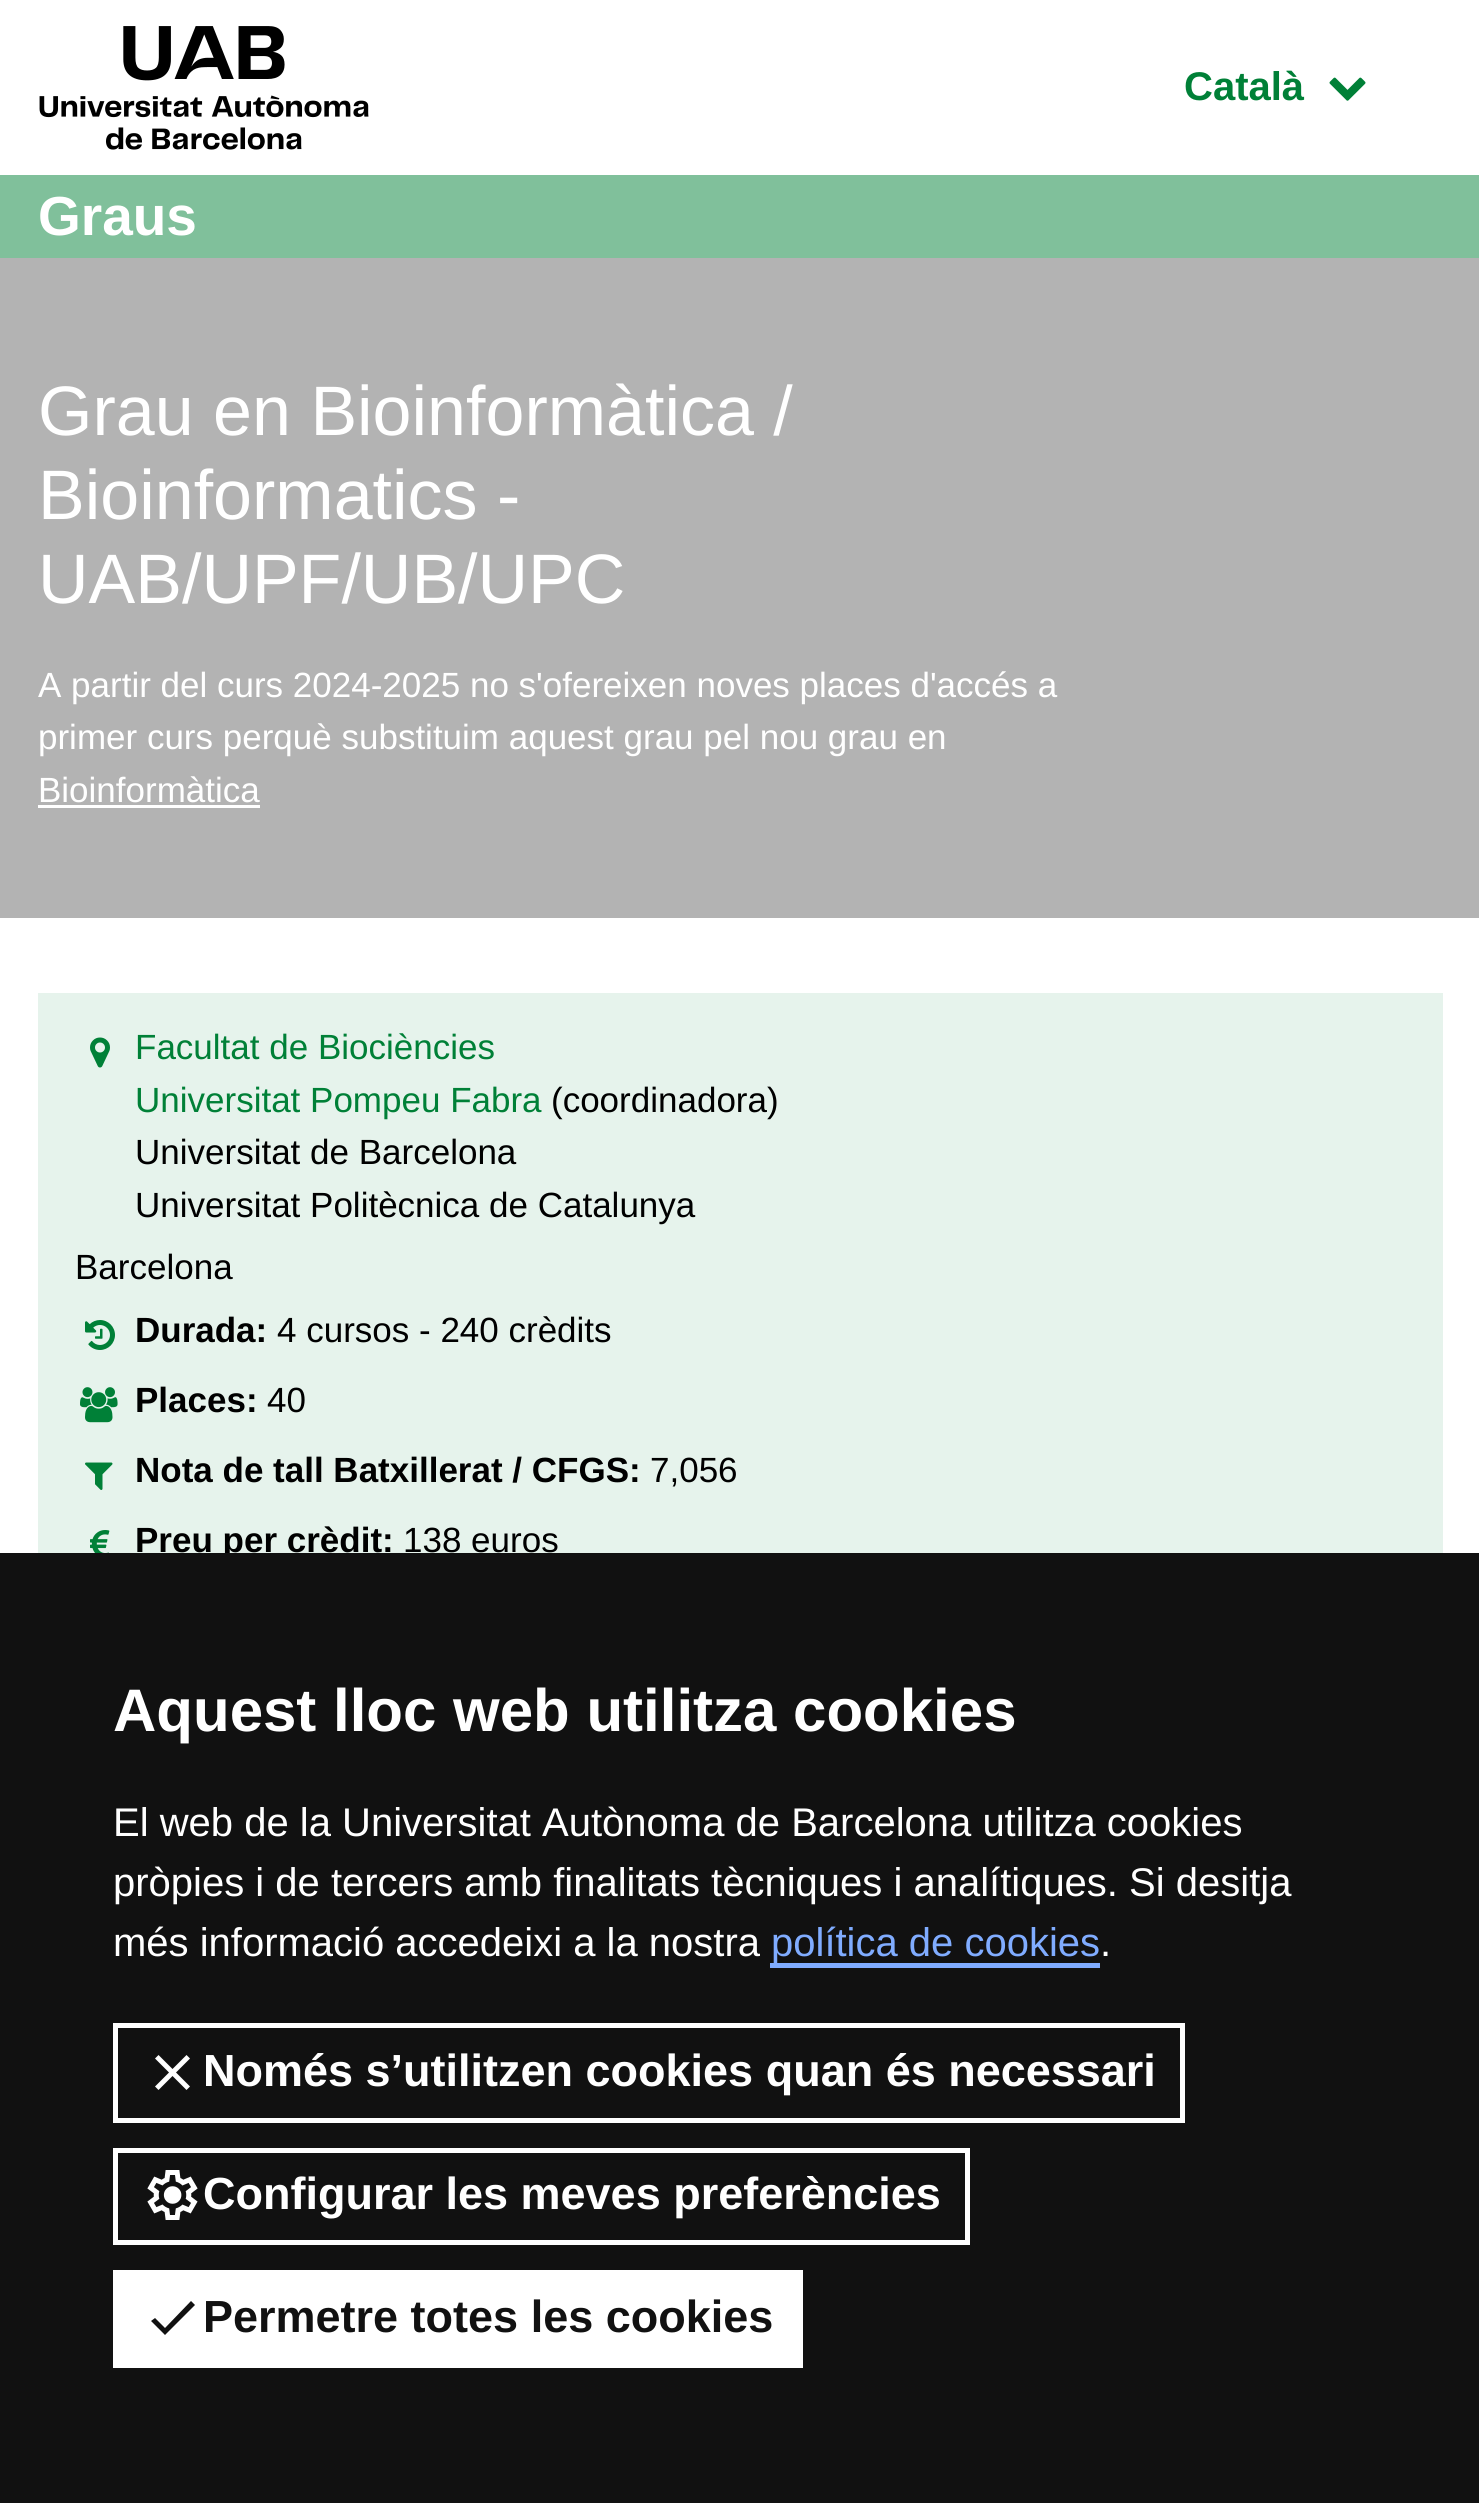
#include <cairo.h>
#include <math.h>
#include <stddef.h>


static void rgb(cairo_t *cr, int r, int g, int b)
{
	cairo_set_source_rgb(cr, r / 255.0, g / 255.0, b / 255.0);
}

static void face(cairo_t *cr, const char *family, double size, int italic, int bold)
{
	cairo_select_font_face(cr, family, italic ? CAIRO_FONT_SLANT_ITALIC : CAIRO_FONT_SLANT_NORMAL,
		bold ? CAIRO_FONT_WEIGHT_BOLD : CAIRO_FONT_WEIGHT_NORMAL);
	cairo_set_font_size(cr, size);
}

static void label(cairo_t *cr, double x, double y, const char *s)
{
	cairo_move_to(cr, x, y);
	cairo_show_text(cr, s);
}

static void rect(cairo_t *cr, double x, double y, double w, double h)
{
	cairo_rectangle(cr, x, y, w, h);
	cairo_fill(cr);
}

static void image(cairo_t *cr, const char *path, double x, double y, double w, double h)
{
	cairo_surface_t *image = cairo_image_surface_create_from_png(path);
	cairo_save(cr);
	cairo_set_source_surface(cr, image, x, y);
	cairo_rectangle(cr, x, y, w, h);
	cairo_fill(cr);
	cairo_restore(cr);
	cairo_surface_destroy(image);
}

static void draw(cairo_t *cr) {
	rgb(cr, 255, 255, 255);
	cairo_paint(cr);
	image(cr, "image0.png", 39, 26, 330, 124);
	face(cr, "Liberation Sans", 40, 0, 1);
	rgb(cr, 0, 128, 55);
	label(cr, 1184, 100, "Català");
	image(cr, "image1.png", 1329, 77, 37, 24);
	rgb(cr, 128, 192, 155);
	rect(cr, 0, 175, 1479, 83);
	face(cr, "Liberation Sans", 55, 0, 1);
	rgb(cr, 255, 255, 255);
	label(cr, 38, 235, "Graus");
	rgb(cr, 179, 179, 179);
	rect(cr, 0, 258, 1479, 660);
	face(cr, "Liberation Sans", 70, 0, 0);
	rgb(cr, 255, 255, 255);
	label(cr, 38, 435, "Grau en Bioinformàtica /");
	label(cr, 38, 519, "Bioinformatics -");
	label(cr, 38, 603, "UAB/UPF/UB/UPC");
	face(cr, "Liberation Sans", 35, 0, 0);
	label(cr, 38, 697, "A partir del curs 2024-2025 no s'ofereixen noves places d'accés a");
	label(cr, 38, 749, "primer curs perquè substituim aquest grau pel nou grau en");
	label(cr, 38, 802, "Bioinformàtica");
	rect(cr, 38, 805, 222, 3);
	rgb(cr, 230, 243, 236);
	rect(cr, 38, 993, 1405, 560);
	image(cr, "image2.png", 90, 1037, 20, 31);
	rgb(cr, 0, 128, 55);
	label(cr, 135, 1059, "Facultat de Biociències");
	label(cr, 135, 1112, "Universitat Pompeu Fabra");
	rgb(cr, 0, 0, 0);
	label(cr, 551, 1112, "(coordinadora)");
	label(cr, 135, 1164, "Universitat de Barcelona");
	label(cr, 135, 1217, "Universitat Politècnica de Catalunya");
	label(cr, 75, 1279, "Barcelona");
	image(cr, "image3.png", 85, 1320, 30, 30);
	face(cr, "Liberation Sans", 35, 0, 1);
	label(cr, 135, 1342, "Durada:");
	face(cr, "Liberation Sans", 35, 0, 0);
	label(cr, 277, 1342, "4 cursos - 240 crèdits");
	image(cr, "image4.png", 80, 1387, 38, 36);
	face(cr, "Liberation Sans", 35, 0, 1);
	label(cr, 135, 1412, "Places:");
	face(cr, "Liberation Sans", 35, 0, 0);
	label(cr, 267, 1412, "40");
	image(cr, "image5.png", 85, 1462, 28, 28);
	face(cr, "Liberation Sans", 35, 0, 1);
	label(cr, 135, 1482, "Nota de tall Batxillerat / CFGS:");
	face(cr, "Liberation Sans", 35, 0, 0);
	label(cr, 650, 1482, "7,056");
	image(cr, "image6.png", 90, 1530, 20, 23);
	face(cr, "Liberation Sans", 35, 0, 1);
	label(cr, 135, 1552, "Preu per crèdit:");
	face(cr, "Liberation Sans", 35, 0, 0);
	label(cr, 403, 1552, "138 euros");
	rgb(cr, 17, 17, 17);
	rect(cr, 0, 1553, 1479, 950);
	face(cr, "Liberation Sans", 60, 0, 1);
	rgb(cr, 255, 255, 255);
	label(cr, 113, 1731, "Aquest lloc web utilitza cookies");
	face(cr, "Liberation Sans", 40, 0, 0);
	label(cr, 113, 1836, "El web de la Universitat Autònoma de Barcelona utilitza cookies");
	label(cr, 113, 1896, "pròpies i de tercers amb finalitats tècniques i analítiques. Si desitja");
	label(cr, 113, 1956, "més informació accedeixi a la nostra");
	rgb(cr, 128, 172, 255);
	rect(cr, 770, 1963, 330, 5);
	label(cr, 771, 1956, "política de cookies");
	rgb(cr, 255, 255, 255);
	label(cr, 1100, 1956, ".");
	cairo_rectangle(cr, 115.5, 2025.5, 1067, 95);
	cairo_set_line_width(cr, 5);
	cairo_stroke(cr);
	cairo_new_path(cr);
	cairo_move_to(cr, 190, 2058.5);
	cairo_line_to(cr, 186.5, 2055);
	cairo_line_to(cr, 172.5, 2069);
	cairo_line_to(cr, 158.5, 2055);
	cairo_line_to(cr, 155, 2058.5);
	cairo_line_to(cr, 169, 2072.5);
	cairo_line_to(cr, 155, 2086.5);
	cairo_line_to(cr, 158.5, 2090);
	cairo_line_to(cr, 172.5, 2076);
	cairo_line_to(cr, 186.5, 2090);
	cairo_line_to(cr, 190, 2086.5);
	cairo_line_to(cr, 176, 2072.5);
	cairo_close_path(cr);
	cairo_fill(cr);
	face(cr, "Liberation Sans", 45, 0, 1);
	label(cr, 203, 2086, "Només s’utilitzen cookies quan és necessari");
	cairo_rectangle(cr, 115.5, 2150.5, 852, 92);
	cairo_stroke(cr);
	image(cr, "image7.png", 147, 2170, 51, 50);
	label(cr, 203, 2209, "Configurar les meves preferències");
	rect(cr, 113, 2270, 690, 98);
	rgb(cr, 17, 17, 17);
	cairo_new_path(cr);
	cairo_move_to(cr, 165, 2328);
	cairo_line_to(cr, 155, 2318);
	cairo_line_to(cr, 151, 2321);
	cairo_line_to(cr, 165, 2335);
	cairo_line_to(cr, 195, 2305);
	cairo_line_to(cr, 191, 2301);
	cairo_close_path(cr);
	cairo_fill(cr);
	label(cr, 203, 2332, "Permetre totes les cookies");
}

int main(void) {
	cairo_surface_t *surface = cairo_image_surface_create(CAIRO_FORMAT_RGB24, 1479, 2503);
	cairo_t *cr = cairo_create(surface);
	cairo_font_options_t *options = cairo_font_options_create();
	cairo_font_options_set_hint_metrics(options, CAIRO_HINT_METRICS_OFF);
	cairo_font_options_set_hint_style(options, CAIRO_HINT_STYLE_NONE);
	cairo_set_font_options(cr, options);
	cairo_set_miter_limit(cr, 4);
	draw(cr);
	cairo_surface_write_to_png(surface, "render.png");
	cairo_font_options_destroy(options);
	cairo_destroy(cr);
	cairo_surface_destroy(surface);
	return 0;
}
